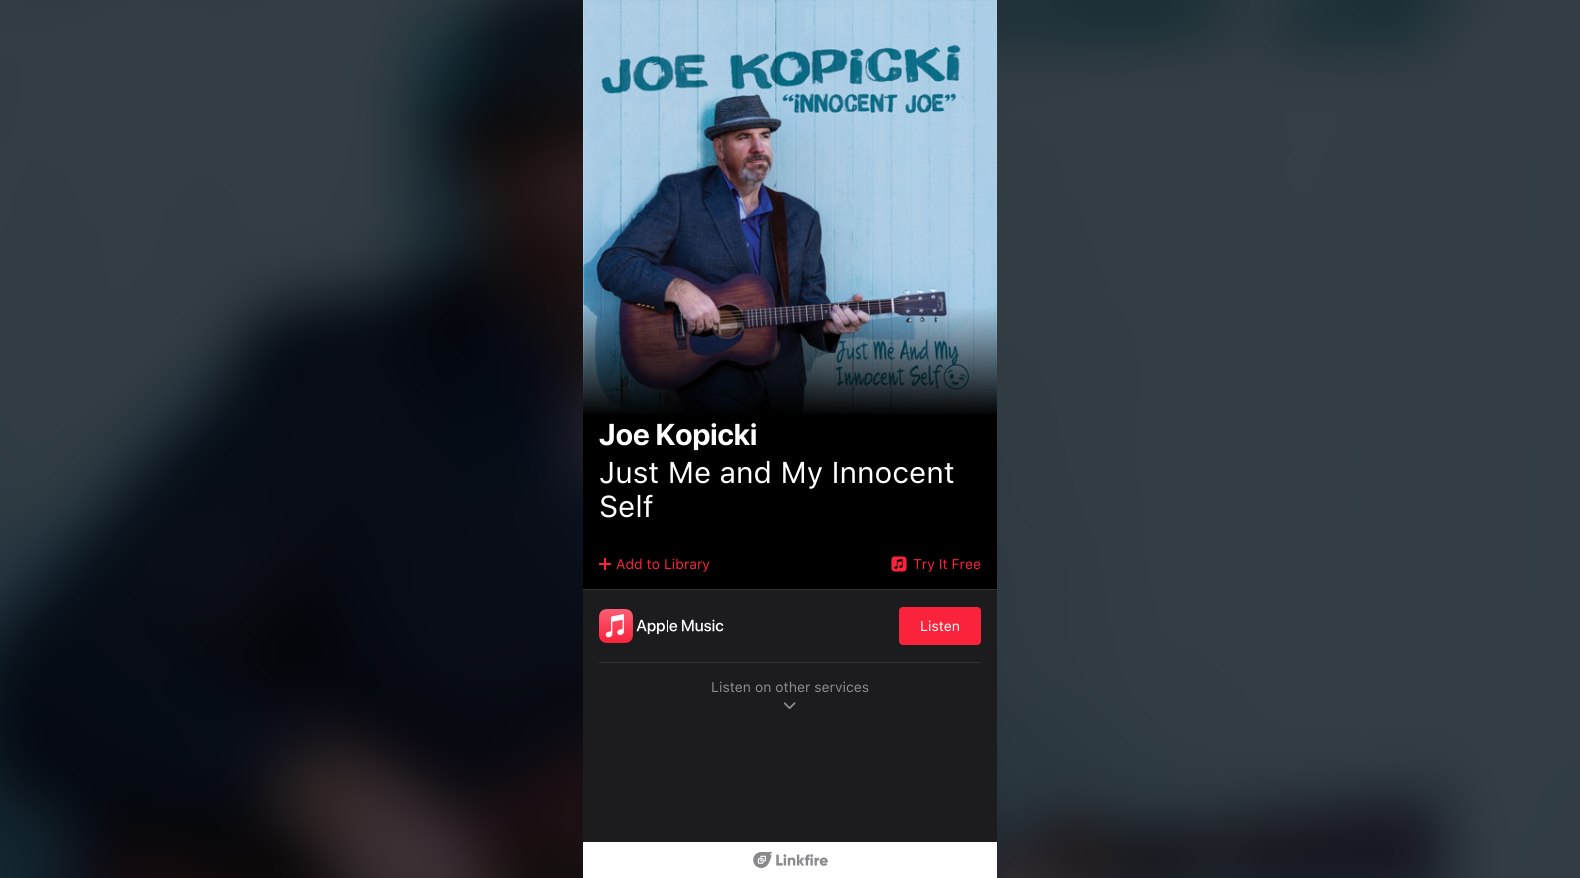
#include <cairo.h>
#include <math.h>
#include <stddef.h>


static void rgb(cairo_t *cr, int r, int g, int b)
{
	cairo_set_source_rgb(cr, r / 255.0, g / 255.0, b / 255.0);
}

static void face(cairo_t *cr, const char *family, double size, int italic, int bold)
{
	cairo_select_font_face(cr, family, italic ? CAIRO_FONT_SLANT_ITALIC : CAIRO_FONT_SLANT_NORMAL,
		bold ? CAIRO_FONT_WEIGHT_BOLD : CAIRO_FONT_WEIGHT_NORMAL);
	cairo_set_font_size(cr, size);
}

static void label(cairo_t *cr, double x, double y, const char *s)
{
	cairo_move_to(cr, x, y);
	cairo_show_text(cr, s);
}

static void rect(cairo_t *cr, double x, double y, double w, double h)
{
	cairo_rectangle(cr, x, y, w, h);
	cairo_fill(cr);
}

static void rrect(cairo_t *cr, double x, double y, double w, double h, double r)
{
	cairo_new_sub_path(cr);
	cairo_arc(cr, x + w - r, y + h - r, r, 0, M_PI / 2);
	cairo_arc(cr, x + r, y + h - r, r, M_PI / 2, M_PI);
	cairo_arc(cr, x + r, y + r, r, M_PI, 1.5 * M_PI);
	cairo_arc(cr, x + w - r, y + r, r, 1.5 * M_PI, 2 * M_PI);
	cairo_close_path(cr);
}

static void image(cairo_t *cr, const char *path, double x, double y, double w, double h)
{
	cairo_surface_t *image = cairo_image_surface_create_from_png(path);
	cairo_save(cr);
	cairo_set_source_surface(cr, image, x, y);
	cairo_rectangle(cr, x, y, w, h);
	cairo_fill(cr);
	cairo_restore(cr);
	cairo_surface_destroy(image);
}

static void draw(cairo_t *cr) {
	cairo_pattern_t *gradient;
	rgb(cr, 0, 0, 0);
	cairo_paint(cr);
	image(cr, "image0.png", 0, 0, 1580, 878);
	rgb(cr, 28, 28, 30);
	rect(cr, 583, 414, 414, 428);
	image(cr, "image1.png", 583, 0, 414, 414);
	gradient = cairo_pattern_create_linear(790, 417, 790, 306);
	cairo_pattern_add_color_stop_rgba(gradient, 0, 0, 0, 0, 1);
	cairo_pattern_add_color_stop_rgba(gradient, 1, 0, 0, 0, 0);
	cairo_set_source(cr, gradient);
	cairo_pattern_destroy(gradient);
	rect(cr, 583, 308, 414, 109);
	rgb(cr, 0, 0, 0);
	rect(cr, 583, 417, 414, 172);
	face(cr, "SF Pro Display", 30, 0, 1);
	rgb(cr, 255, 255, 255);
	label(cr, 599, 445, "Joe Kopicki");
	face(cr, "SF Pro Text", 30, 0, 0);
	label(cr, 599, 483, "Just Me and My Innocent");
	label(cr, 599, 517, "Self");
	rgb(cr, 51, 51, 51);
	rect(cr, 583, 589, 414, 1);
	image(cr, "image2.png", 599, 558, 12, 12);
	face(cr, "SF Pro Text", 14, 0, 0);
	rgb(cr, 250, 35, 59);
	label(cr, 616, 569, "Add to Library");
	image(cr, "image3.png", 891, 556, 16, 16);
	label(cr, 913, 569, "Try It Free");
	rgb(cr, 51, 51, 51);
	rect(cr, 599, 662, 382, 1);
	image(cr, "image4.png", 599, 609, 125, 34);
	rgb(cr, 250, 35, 59);
	rrect(cr, 899.5, 607.5, 81, 37, 3.5);
	cairo_fill_preserve(cr);
	cairo_set_line_width(cr, 1);
	cairo_stroke(cr);
	rgb(cr, 255, 255, 255);
	label(cr, 920, 631, "Listen");
	rgb(cr, 140, 140, 148);
	label(cr, 711, 692, "Listen on other services");
	image(cr, "image5.png", 784, 702, 12, 7);
	rgb(cr, 255, 255, 255);
	rect(cr, 583, 842, 414, 36);
	image(cr, "image6.png", 753, 852, 75, 16);
}

int main(void) {
	cairo_surface_t *surface = cairo_image_surface_create(CAIRO_FORMAT_RGB24, 1580, 878);
	cairo_t *cr = cairo_create(surface);
	cairo_font_options_t *options = cairo_font_options_create();
	cairo_font_options_set_hint_metrics(options, CAIRO_HINT_METRICS_OFF);
	cairo_font_options_set_hint_style(options, CAIRO_HINT_STYLE_NONE);
	cairo_set_font_options(cr, options);
	cairo_set_miter_limit(cr, 4);
	draw(cr);
	cairo_surface_write_to_png(surface, "render.png");
	cairo_font_options_destroy(options);
	cairo_destroy(cr);
	cairo_surface_destroy(surface);
	return 0;
}
